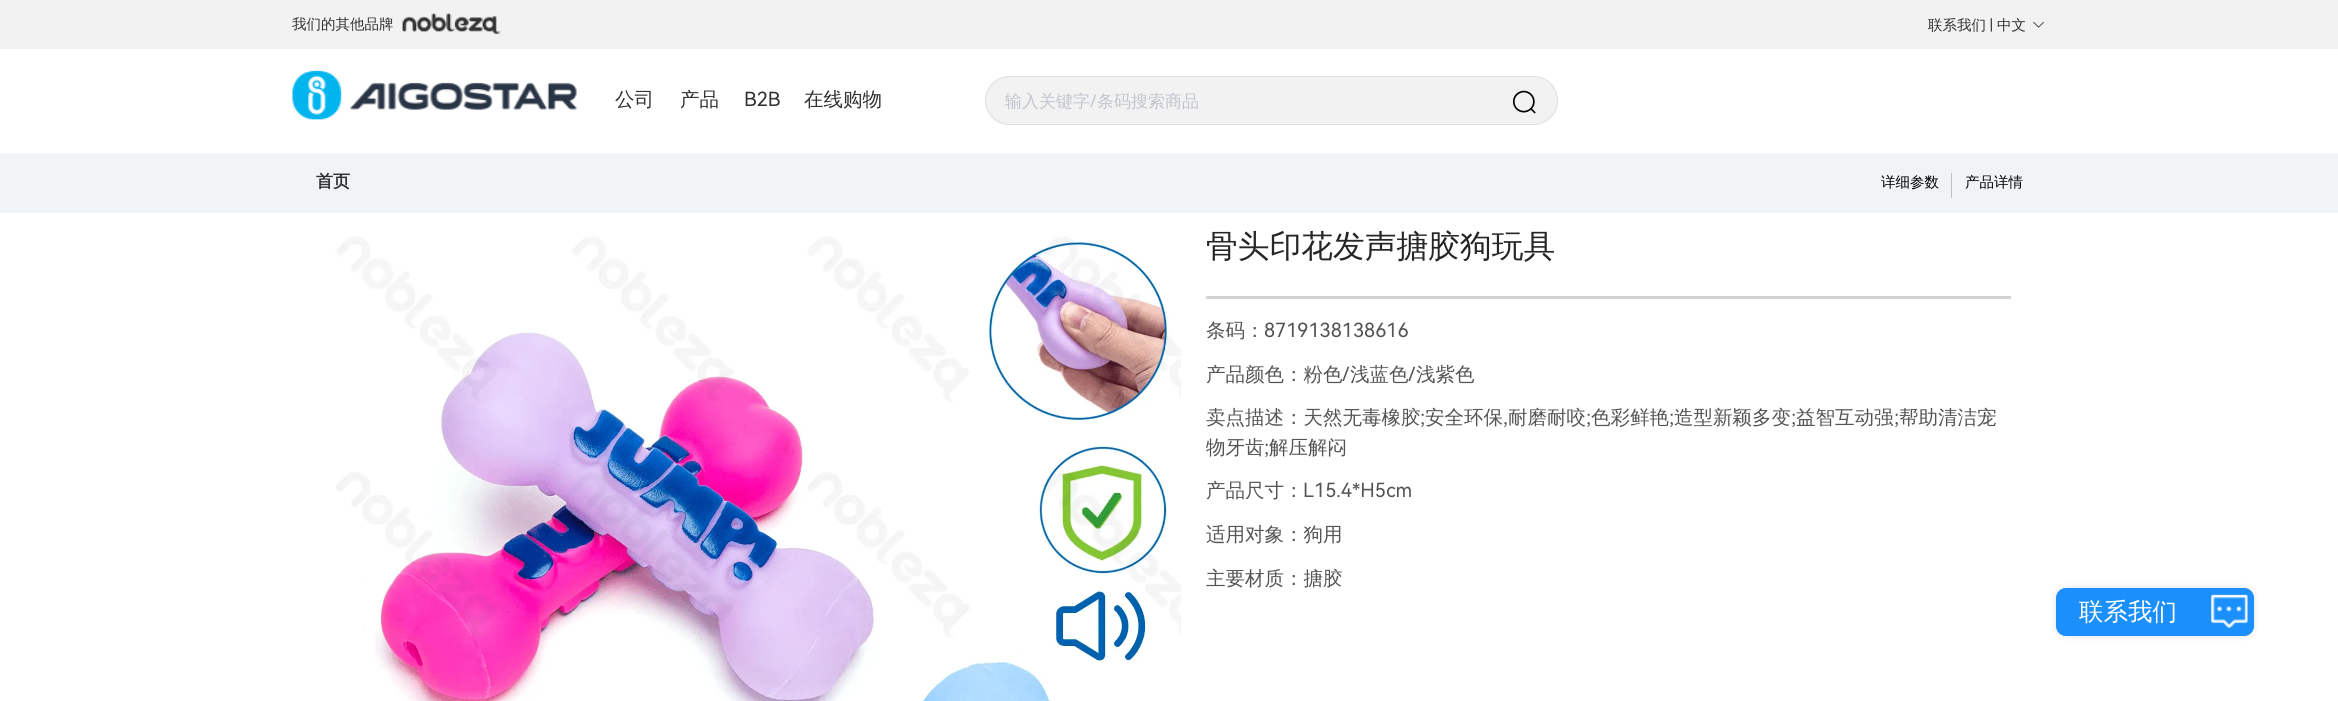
#include <cairo.h>
#include <math.h>
#include <stddef.h>


static void rgb(cairo_t *cr, int r, int g, int b)
{
	cairo_set_source_rgb(cr, r / 255.0, g / 255.0, b / 255.0);
}

static void face(cairo_t *cr, const char *family, double size, int italic, int bold)
{
	cairo_select_font_face(cr, family, italic ? CAIRO_FONT_SLANT_ITALIC : CAIRO_FONT_SLANT_NORMAL,
		bold ? CAIRO_FONT_WEIGHT_BOLD : CAIRO_FONT_WEIGHT_NORMAL);
	cairo_set_font_size(cr, size);
}

static void label(cairo_t *cr, double x, double y, const char *s)
{
	cairo_move_to(cr, x, y);
	cairo_show_text(cr, s);
}

static void rect(cairo_t *cr, double x, double y, double w, double h)
{
	cairo_rectangle(cr, x, y, w, h);
	cairo_fill(cr);
}

static void rrect(cairo_t *cr, double x, double y, double w, double h, double r)
{
	cairo_new_sub_path(cr);
	cairo_arc(cr, x + w - r, y + h - r, r, 0, M_PI / 2);
	cairo_arc(cr, x + r, y + h - r, r, M_PI / 2, M_PI);
	cairo_arc(cr, x + r, y + r, r, M_PI, 1.5 * M_PI);
	cairo_arc(cr, x + w - r, y + r, r, 1.5 * M_PI, 2 * M_PI);
	cairo_close_path(cr);
}

static void soft_shadow(cairo_t *cr, double x, double y, double w, double h, double r, double blur, double alpha)
{
	cairo_push_group_with_content(cr, CAIRO_CONTENT_ALPHA);
	cairo_set_operator(cr, CAIRO_OPERATOR_SOURCE);
	for (int i = 15; i >= -15 && fmin(w, h) + blur * i / 3 > 0; i -= 2) {
		double e = blur * i / 6;
		cairo_set_source_rgba(cr, 0, 0, 0, alpha * erfc((i - 1) / 8.5) / 2);
		rrect(cr, x - e, y - e, w + 2 * e, h + 2 * e, fmax(0, fmin(r + e + blur * .6, fmin(w, h) / 2 + e)));
		cairo_fill(cr);
	}
	cairo_pattern_t *soft = cairo_pop_group(cr);
	cairo_mask(cr, soft);
	cairo_pattern_destroy(soft);
}

static void image(cairo_t *cr, const char *path, double x, double y, double w, double h)
{
	cairo_surface_t *image = cairo_image_surface_create_from_png(path);
	cairo_save(cr);
	cairo_set_source_surface(cr, image, x, y);
	cairo_rectangle(cr, x, y, w, h);
	cairo_fill(cr);
	cairo_restore(cr);
	cairo_surface_destroy(image);
}

static void draw(cairo_t *cr) {
	rgb(cr, 241, 244, 247);
	cairo_paint(cr);
	rgb(cr, 242, 242, 242);
	rect(cr, 0, 0, 2338, 49);
	face(cr, "WenQuanYi Zen Hei Medium", 14.5, 0, 0);
	rgb(cr, 48, 49, 51);
	label(cr, 292, 29, "我们的其他品牌");
	image(cr, "image0.png", 402, 13, 99, 21);
	label(cr, 1928, 30, "联系我们");
	face(cr, "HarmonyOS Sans", 14.5, 0, 0);
	label(cr, 1990, 30, "|");
	face(cr, "WenQuanYi Zen Hei Medium", 14.5, 0, 0);
	label(cr, 1997, 30, "中文");
	image(cr, "image1.png", 2033, 22, 11, 6);
	rgb(cr, 255, 255, 255);
	rect(cr, 0, 49, 2338, 104);
	rgb(cr, 245, 247, 249);
	rect(cr, 0, 153, 2338, 1);
	image(cr, "image2.png", 292, 70, 285, 50);
	face(cr, "WenQuanYi Zen Hei Medium", 19.5, 0, 0);
	rgb(cr, 48, 49, 51);
	label(cr, 615, 106, "公司");
	label(cr, 680, 106, "产品");
	face(cr, "HarmonyOS Sans", 19.5, 0, 0);
	label(cr, 744, 106, "B2B");
	face(cr, "WenQuanYi Zen Hei Medium", 19.5, 0, 0);
	label(cr, 804, 106, "在线购物");
	rgb(cr, 242, 242, 242);
	rrect(cr, 985.5, 76.5, 572, 48, 24);
	cairo_fill_preserve(cr);
	rgb(cr, 220, 223, 230);
	cairo_set_line_width(cr, 1);
	cairo_stroke(cr);
	face(cr, "WenQuanYi Zen Hei Medium", 17, 0, 0);
	rgb(cr, 192, 196, 204);
	label(cr, 1005, 107, "输入关键字");
	face(cr, "HarmonyOS Sans", 17, 0, 0);
	label(cr, 1090, 107, "/");
	face(cr, "WenQuanYi Zen Hei Medium", 17, 0, 0);
	label(cr, 1097, 107, "条码搜索商品");
	image(cr, "image3.png", 1512, 90, 24, 24);
	face(cr, "WenQuanYi Zen Hei", 17, 0, 1);
	rgb(cr, 48, 49, 51);
	label(cr, 316, 187, "首页");
	face(cr, "WenQuanYi Zen Hei Medium", 14.5, 0, 0);
	rgb(cr, 0, 0, 0);
	label(cr, 1881, 187, "详细参数");
	rgb(cr, 191, 191, 191);
	rect(cr, 1951, 173, 1, 25);
	rgb(cr, 0, 0, 0);
	label(cr, 1965, 187, "产品详情");
	rgb(cr, 255, 255, 255);
	rect(cr, 0, 213, 2338, 488);
	image(cr, "image4.png", 335, 236, 846, 465);
	face(cr, "WenQuanYi Zen Hei Medium", 31.75, 0, 0);
	rgb(cr, 38, 38, 38);
	label(cr, 1206, 257, "骨头印花发声搪胶狗玩具");
	rgb(cr, 210, 210, 210);
	rect(cr, 1206, 296, 805, 3);
	face(cr, "WenQuanYi Zen Hei Medium", 19.5, 0, 0);
	rgb(cr, 84, 84, 84);
	label(cr, 1206, 337, "条码：");
	face(cr, "HarmonyOS Sans", 19.5, 0, 0);
	label(cr, 1264, 337, "8719138138616");
	face(cr, "WenQuanYi Zen Hei Medium", 19.5, 0, 0);
	label(cr, 1206, 381, "产品颜色：粉色");
	face(cr, "HarmonyOS Sans", 19.5, 0, 0);
	label(cr, 1342, 381, "/");
	face(cr, "WenQuanYi Zen Hei Medium", 19.5, 0, 0);
	label(cr, 1350, 381, "浅蓝色");
	face(cr, "HarmonyOS Sans", 19.5, 0, 0);
	label(cr, 1408, 381, "/");
	face(cr, "WenQuanYi Zen Hei Medium", 19.5, 0, 0);
	label(cr, 1416, 381, "浅紫色");
	label(cr, 1206, 424, "卖点描述：天然无毒橡胶");
	face(cr, "HarmonyOS Sans", 19.5, 0, 0);
	label(cr, 1420, 424, ";");
	face(cr, "WenQuanYi Zen Hei Medium", 19.5, 0, 0);
	label(cr, 1425, 424, "安全环保");
	face(cr, "HarmonyOS Sans", 19.5, 0, 0);
	label(cr, 1503, 424, ",");
	face(cr, "WenQuanYi Zen Hei Medium", 19.5, 0, 0);
	label(cr, 1508, 424, "耐磨耐咬");
	face(cr, "HarmonyOS Sans", 19.5, 0, 0);
	label(cr, 1586, 424, ";");
	face(cr, "WenQuanYi Zen Hei Medium", 19.5, 0, 0);
	label(cr, 1591, 424, "色彩鲜艳");
	face(cr, "HarmonyOS Sans", 19.5, 0, 0);
	label(cr, 1669, 424, ";");
	face(cr, "WenQuanYi Zen Hei Medium", 19.5, 0, 0);
	label(cr, 1674, 424, "造型新颖多变");
	face(cr, "HarmonyOS Sans", 19.5, 0, 0);
	label(cr, 1791, 424, ";");
	face(cr, "WenQuanYi Zen Hei Medium", 19.5, 0, 0);
	label(cr, 1796, 424, "益智互动强");
	face(cr, "HarmonyOS Sans", 19.5, 0, 0);
	label(cr, 1894, 424, ";");
	face(cr, "WenQuanYi Zen Hei Medium", 19.5, 0, 0);
	label(cr, 1899, 424, "帮助清洁宠");
	label(cr, 1206, 454, "物牙齿");
	face(cr, "HarmonyOS Sans", 19.5, 0, 0);
	label(cr, 1264, 454, ";");
	face(cr, "WenQuanYi Zen Hei Medium", 19.5, 0, 0);
	label(cr, 1269, 454, "解压解闷");
	label(cr, 1206, 497, "产品尺寸：");
	face(cr, "HarmonyOS Sans", 19.5, 0, 0);
	label(cr, 1303, 497, "L15.4*H5cm");
	face(cr, "WenQuanYi Zen Hei Medium", 19.5, 0, 0);
	label(cr, 1206, 541, "适用对象：狗用");
	label(cr, 1206, 585, "主要材质：搪胶");
	rgb(cr, 0, 0, 0);
	soft_shadow(cr, 2056, 588, 198, 48, 10, 3.5, 0.12);
	rgb(cr, 27, 144, 253);
	rrect(cr, 2056, 588, 198, 48, 10);
	cairo_fill(cr);
	face(cr, "WenQuanYi Zen Hei Medium", 24.5, 0, 0);
	rgb(cr, 255, 255, 255);
	label(cr, 2079, 620, "联系我们");
	image(cr, "image5.png", 2211, 594, 37, 34);
}

int main(void) {
	cairo_surface_t *surface = cairo_image_surface_create(CAIRO_FORMAT_RGB24, 2338, 701);
	cairo_t *cr = cairo_create(surface);
	cairo_font_options_t *options = cairo_font_options_create();
	cairo_font_options_set_hint_metrics(options, CAIRO_HINT_METRICS_OFF);
	cairo_font_options_set_hint_style(options, CAIRO_HINT_STYLE_NONE);
	cairo_set_font_options(cr, options);
	cairo_set_miter_limit(cr, 4);
	draw(cr);
	cairo_surface_write_to_png(surface, "render.png");
	cairo_font_options_destroy(options);
	cairo_destroy(cr);
	cairo_surface_destroy(surface);
	return 0;
}
